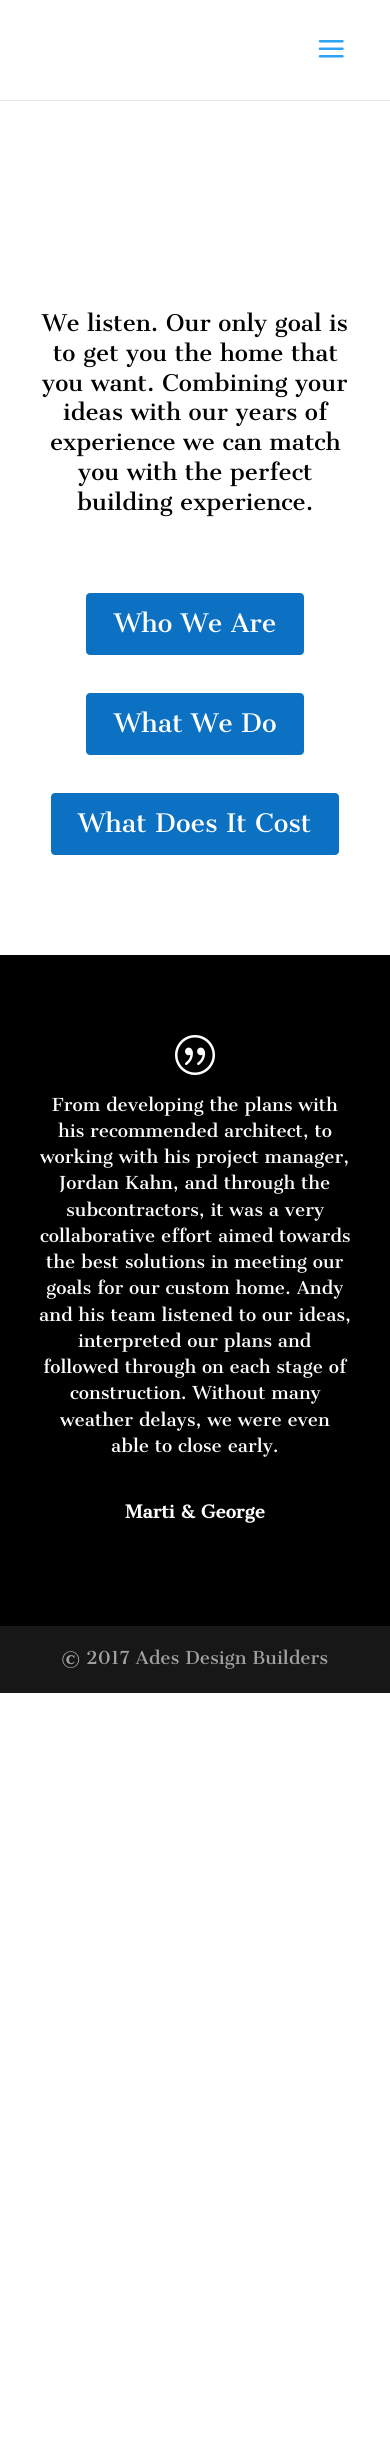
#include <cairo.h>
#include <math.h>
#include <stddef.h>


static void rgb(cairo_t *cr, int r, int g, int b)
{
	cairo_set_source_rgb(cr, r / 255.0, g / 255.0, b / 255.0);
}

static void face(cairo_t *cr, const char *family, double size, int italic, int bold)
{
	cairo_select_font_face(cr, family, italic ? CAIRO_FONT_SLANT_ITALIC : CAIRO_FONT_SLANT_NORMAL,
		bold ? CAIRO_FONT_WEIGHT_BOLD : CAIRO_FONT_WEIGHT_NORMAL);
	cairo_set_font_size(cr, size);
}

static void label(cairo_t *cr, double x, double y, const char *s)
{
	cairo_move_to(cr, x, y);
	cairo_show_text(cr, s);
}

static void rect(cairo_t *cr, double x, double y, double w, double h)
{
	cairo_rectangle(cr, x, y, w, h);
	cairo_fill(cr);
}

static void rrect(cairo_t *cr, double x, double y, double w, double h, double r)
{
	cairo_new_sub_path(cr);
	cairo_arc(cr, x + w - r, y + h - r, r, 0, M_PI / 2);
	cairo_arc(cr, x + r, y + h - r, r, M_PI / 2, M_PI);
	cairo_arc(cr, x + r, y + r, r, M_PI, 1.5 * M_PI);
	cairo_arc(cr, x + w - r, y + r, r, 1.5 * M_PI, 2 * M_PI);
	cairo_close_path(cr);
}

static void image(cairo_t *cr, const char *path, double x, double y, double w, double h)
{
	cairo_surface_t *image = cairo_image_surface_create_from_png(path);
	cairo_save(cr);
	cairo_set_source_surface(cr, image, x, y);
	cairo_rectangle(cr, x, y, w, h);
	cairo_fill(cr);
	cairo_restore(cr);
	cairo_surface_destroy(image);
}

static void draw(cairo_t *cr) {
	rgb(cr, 255, 255, 255);
	cairo_paint(cr);
	rgb(cr, 230, 230, 230);
	rect(cr, 0, 100, 390, 1);
	image(cr, "image0.png", 318, 40, 26, 18);
	face(cr, "Cantata One", 22.5, 0, 0);
	rgb(cr, 0, 0, 0);
	label(cr, 42, 331, "We listen. Our only goal is");
	label(cr, 53, 361, "to get you the home that");
	label(cr, 42, 391, "you want. Combining your");
	label(cr, 63, 420, "ideas with our years of");
	label(cr, 50, 450, "experience we can match");
	label(cr, 78, 480, "you with the perfect");
	label(cr, 77, 510, "building experience.");
	rgb(cr, 12, 113, 195);
	rrect(cr, 87.5, 594.5, 215, 59, 2.5);
	cairo_fill_preserve(cr);
	cairo_set_line_width(cr, 3);
	cairo_stroke(cr);
	face(cr, "Cantata One", 25, 0, 0);
	rgb(cr, 255, 255, 255);
	label(cr, 114, 632, "Who We Are");
	rgb(cr, 12, 113, 195);
	rrect(cr, 87.5, 694.5, 215, 59, 2.5);
	cairo_fill_preserve(cr);
	cairo_stroke(cr);
	rgb(cr, 255, 255, 255);
	label(cr, 114, 732, "What We Do");
	rgb(cr, 12, 113, 195);
	rrect(cr, 52.5, 794.5, 285, 59, 2.5);
	cairo_fill_preserve(cr);
	cairo_stroke(cr);
	rgb(cr, 255, 255, 255);
	label(cr, 78, 832, "What Does It Cost");
	rgb(cr, 0, 0, 0);
	rect(cr, 0, 955, 390, 671);
	image(cr, "image1.png", 175, 1035, 40, 40);
	face(cr, "Cantata One", 17.5, 0, 0);
	rgb(cr, 255, 255, 255);
	label(cr, 52, 1111, "From developing the plans with");
	label(cr, 58, 1137, "his recommended architect, to");
	label(cr, 40, 1163, "working with his project manager,");
	label(cr, 59, 1189, "Jordan Kahn, and through the");
	label(cr, 66, 1216, "subcontractors, it was a very");
	label(cr, 40, 1242, "collaborative effort aimed towards");
	label(cr, 46, 1268, "the best solutions in meeting our");
	label(cr, 46, 1294, "goals for our custom home. Andy");
	label(cr, 39, 1321, "and his team listened to our ideas,");
	label(cr, 78, 1347, "interpreted our plans and");
	label(cr, 43, 1373, "followed through on each stage of");
	label(cr, 70, 1399, "construction. Without many");
	label(cr, 60, 1426, "weather delays, we were even");
	label(cr, 111, 1452, "able to close early.");
	face(cr, "Cantata One", 17.5, 0, 1);
	label(cr, 125, 1518, "Marti & George");
	rgb(cr, 23, 23, 23);
	rect(cr, 0, 1626, 390, 67);
	face(cr, "Cantata One", 17.5, 0, 0);
	rgb(cr, 160, 160, 160);
	label(cr, 61, 1664, "© 2017 Ades Design Builders");
}

int main(void) {
	cairo_surface_t *surface = cairo_image_surface_create(CAIRO_FORMAT_RGB24, 390, 2443);
	cairo_t *cr = cairo_create(surface);
	cairo_font_options_t *options = cairo_font_options_create();
	cairo_font_options_set_hint_metrics(options, CAIRO_HINT_METRICS_OFF);
	cairo_font_options_set_hint_style(options, CAIRO_HINT_STYLE_NONE);
	cairo_set_font_options(cr, options);
	cairo_set_miter_limit(cr, 4);
	draw(cr);
	cairo_surface_write_to_png(surface, "render.png");
	cairo_font_options_destroy(options);
	cairo_destroy(cr);
	cairo_surface_destroy(surface);
	return 0;
}
